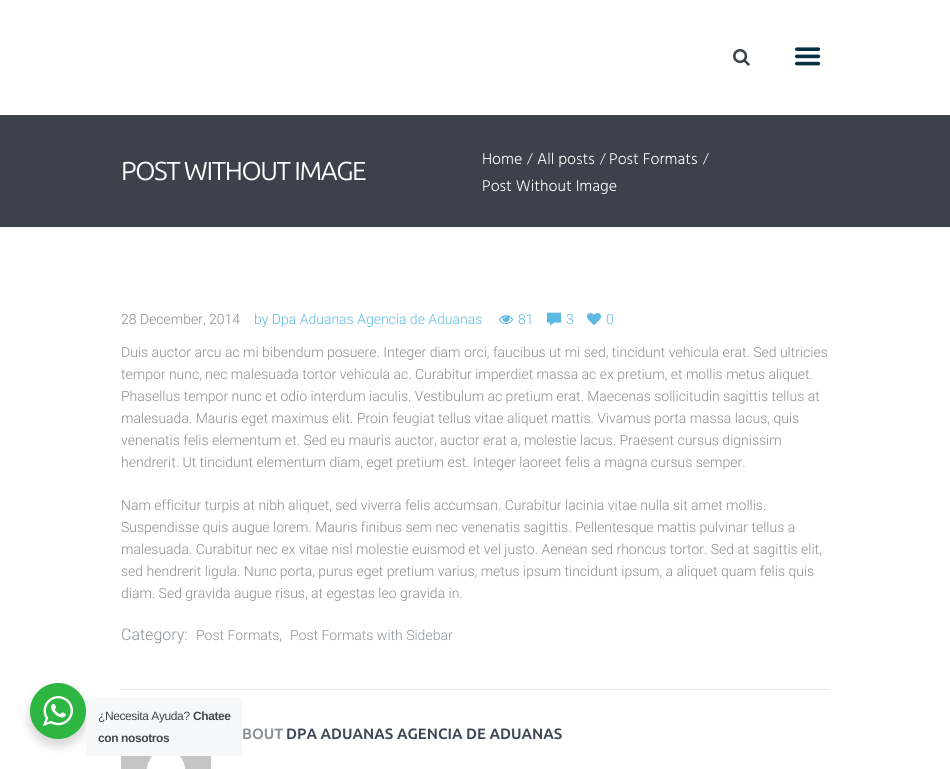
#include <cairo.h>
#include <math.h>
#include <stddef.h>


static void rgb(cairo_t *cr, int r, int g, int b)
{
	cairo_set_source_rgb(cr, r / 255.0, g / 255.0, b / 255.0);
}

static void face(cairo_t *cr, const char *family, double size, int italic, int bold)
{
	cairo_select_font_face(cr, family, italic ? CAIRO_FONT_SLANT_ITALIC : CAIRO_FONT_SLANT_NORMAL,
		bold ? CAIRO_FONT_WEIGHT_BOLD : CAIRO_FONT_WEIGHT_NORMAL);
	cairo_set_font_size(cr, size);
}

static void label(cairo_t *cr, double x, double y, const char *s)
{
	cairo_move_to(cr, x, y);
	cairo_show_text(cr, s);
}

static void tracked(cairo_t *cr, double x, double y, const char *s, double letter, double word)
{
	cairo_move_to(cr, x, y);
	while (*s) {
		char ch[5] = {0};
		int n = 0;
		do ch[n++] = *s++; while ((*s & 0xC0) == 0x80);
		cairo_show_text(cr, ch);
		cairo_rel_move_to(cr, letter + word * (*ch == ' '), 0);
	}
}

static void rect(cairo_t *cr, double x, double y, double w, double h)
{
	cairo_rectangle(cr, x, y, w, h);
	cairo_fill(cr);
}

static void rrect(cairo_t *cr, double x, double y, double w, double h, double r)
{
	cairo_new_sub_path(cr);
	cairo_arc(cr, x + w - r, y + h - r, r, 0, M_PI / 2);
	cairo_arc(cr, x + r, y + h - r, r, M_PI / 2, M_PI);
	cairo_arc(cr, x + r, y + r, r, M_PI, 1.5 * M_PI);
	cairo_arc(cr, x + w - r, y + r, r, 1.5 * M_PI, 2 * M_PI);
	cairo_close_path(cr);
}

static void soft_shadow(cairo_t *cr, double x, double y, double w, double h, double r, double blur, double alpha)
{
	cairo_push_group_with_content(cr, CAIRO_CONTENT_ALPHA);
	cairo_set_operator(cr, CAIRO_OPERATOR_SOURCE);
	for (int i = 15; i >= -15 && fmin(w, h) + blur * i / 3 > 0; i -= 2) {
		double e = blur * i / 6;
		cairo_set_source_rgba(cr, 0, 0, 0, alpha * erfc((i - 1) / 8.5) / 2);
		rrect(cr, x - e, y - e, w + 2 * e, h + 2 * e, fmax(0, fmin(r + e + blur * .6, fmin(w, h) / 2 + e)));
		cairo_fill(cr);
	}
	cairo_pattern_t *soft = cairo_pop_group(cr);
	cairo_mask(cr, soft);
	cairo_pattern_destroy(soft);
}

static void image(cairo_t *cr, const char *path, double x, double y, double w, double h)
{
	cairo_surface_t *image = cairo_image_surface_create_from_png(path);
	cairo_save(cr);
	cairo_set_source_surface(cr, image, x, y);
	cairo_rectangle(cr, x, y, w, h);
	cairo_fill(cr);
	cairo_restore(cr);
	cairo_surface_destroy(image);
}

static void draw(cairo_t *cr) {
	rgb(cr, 255, 255, 255);
	cairo_paint(cr);
	image(cr, "image0.png", 733, 49, 17, 17);
	image(cr, "image1.png", 795, 47, 26, 19);
	rgb(cr, 60, 65, 76);
	rect(cr, 0, 115, 950, 112);
	face(cr, "Ubuntu", 26, 0, 0);
	rgb(cr, 255, 255, 255);
	tracked(cr, 121, 180, "POST WITHOUT IMAGE", -1.4, 0);
	face(cr, "Hind Light", 16, 0, 0);
	label(cr, 482, 164, "Home");
	face(cr, "Hind Light", 14, 0, 0);
	label(cr, 527, 163, "/");
	face(cr, "Hind Light", 16, 0, 0);
	label(cr, 537, 164, "All posts");
	face(cr, "Hind Light", 14, 0, 0);
	label(cr, 600, 163, "/");
	face(cr, "Hind Light", 16, 0, 0);
	label(cr, 609, 164, "Post Formats");
	face(cr, "Hind Light", 14, 0, 0);
	label(cr, 703, 163, "/");
	face(cr, "Hind Light", 16, 0, 0);
	label(cr, 482, 191, "Post Without Image");
	face(cr, "Roboto Light", 14, 0, 0);
	rgb(cr, 139, 139, 139);
	label(cr, 121, 324, "28 December, 2014");
	rgb(cr, 92, 185, 226);
	label(cr, 254, 324, "by Dpa Aduanas Agencia de Aduanas");
	image(cr, "image2.png", 499, 315, 14, 10);
	label(cr, 518, 324, "81");
	image(cr, "image3.png", 547, 312, 14, 14);
	label(cr, 566, 324, "3");
	image(cr, "image4.png", 587, 313, 14, 12);
	label(cr, 606, 324, "0");
	rgb(cr, 139, 139, 139);
	label(cr, 121, 357, "Duis auctor arcu ac mi bibendum posuere. Integer diam orci, faucibus ut mi sed, tincidunt vehicula erat. Sed ultricies");
	label(cr, 121, 379, "tempor nunc, nec malesuada tortor vehicula ac. Curabitur imperdiet massa ac ex pretium, et mollis metus aliquet.");
	label(cr, 121, 401, "Phasellus tempor nunc et odio interdum iaculis. Vestibulum ac pretium erat. Maecenas sollicitudin sagittis tellus at");
	label(cr, 121, 423, "malesuada. Mauris eget maximus elit. Proin feugiat tellus vitae aliquet mattis. Vivamus porta massa lacus, quis");
	label(cr, 121, 445, "venenatis felis elementum et. Sed eu mauris auctor, auctor erat a, molestie lacus. Praesent cursus dignissim");
	label(cr, 121, 467, "hendrerit. Ut tincidunt elementum diam, eget pretium est. Integer laoreet felis a magna cursus semper.");
	label(cr, 121, 510, "Nam efficitur turpis at nibh aliquet, sed viverra felis accumsan. Curabitur lacinia vitae nulla sit amet mollis.");
	label(cr, 121, 532, "Suspendisse quis augue lorem. Mauris finibus sem nec venenatis sagittis. Pellentesque mattis pulvinar tellus a");
	label(cr, 121, 554, "malesuada. Curabitur nec ex vitae nisl molestie euismod et vel justo. Aenean sed rhoncus tortor. Sed at sagittis elit,");
	label(cr, 121, 576, "sed hendrerit ligula. Nunc porta, purus eget pretium varius, metus ipsum tincidunt ipsum, a aliquet quam felis quis");
	label(cr, 121, 598, "diam. Sed gravida augue risus, at egestas leo gravida in.");
	face(cr, "Roboto Light", 16, 0, 0);
	rgb(cr, 139, 144, 148);
	label(cr, 121, 640, "Category:");
	face(cr, "Roboto Light", 14, 0, 0);
	label(cr, 196, 640, "Post Formats");
	face(cr, "Roboto Light", 16, 0, 0);
	label(cr, 279, 640, ",");
	face(cr, "Roboto Light", 14, 0, 0);
	label(cr, 290, 640, "Post Formats with Sidebar");
	rgb(cr, 232, 233, 233);
	rect(cr, 121, 689, 708, 1);
	face(cr, "Ubuntu", 15, 0, 1);
	rgb(cr, 139, 144, 148);
	label(cr, 242, 739, "BOUT");
	rgb(cr, 64, 72, 86);
	label(cr, 286, 739, "DPA ADUANAS AGENCIA DE ADUANAS");
	image(cr, "image5.png", 121, 756, 90, 13);
	rgb(cr, 0, 0, 0);
	soft_shadow(cr, 28, 687, 60, 60, 30, 4, 0.14);
	rgb(cr, 45, 183, 66);
	cairo_arc(cr, 58, 711, 28, 0, 2 * M_PI);
	cairo_fill(cr);
	image(cr, "image6.png", 43, 696, 30, 30);
	rgb(cr, 245, 247, 249);
	rrect(cr, 86, 698, 156, 58, 4);
	cairo_fill(cr);
	face(cr, "Liberation Sans", 12, 0, 0);
	rgb(cr, 67, 71, 78);
	tracked(cr, 98, 720, "¿Necesita Ayuda?", -0.4, 0);
	face(cr, "Liberation Sans", 12, 0, 1);
	tracked(cr, 193, 720, "Chatee", -0.4, 0);
	tracked(cr, 98, 742, "con nosotros", -0.4, 0);
}

int main(void) {
	cairo_surface_t *surface = cairo_image_surface_create(CAIRO_FORMAT_RGB24, 950, 769);
	cairo_t *cr = cairo_create(surface);
	cairo_font_options_t *options = cairo_font_options_create();
	cairo_font_options_set_hint_metrics(options, CAIRO_HINT_METRICS_OFF);
	cairo_font_options_set_hint_style(options, CAIRO_HINT_STYLE_NONE);
	cairo_set_font_options(cr, options);
	cairo_set_miter_limit(cr, 4);
	draw(cr);
	cairo_surface_write_to_png(surface, "render.png");
	cairo_font_options_destroy(options);
	cairo_destroy(cr);
	cairo_surface_destroy(surface);
	return 0;
}
